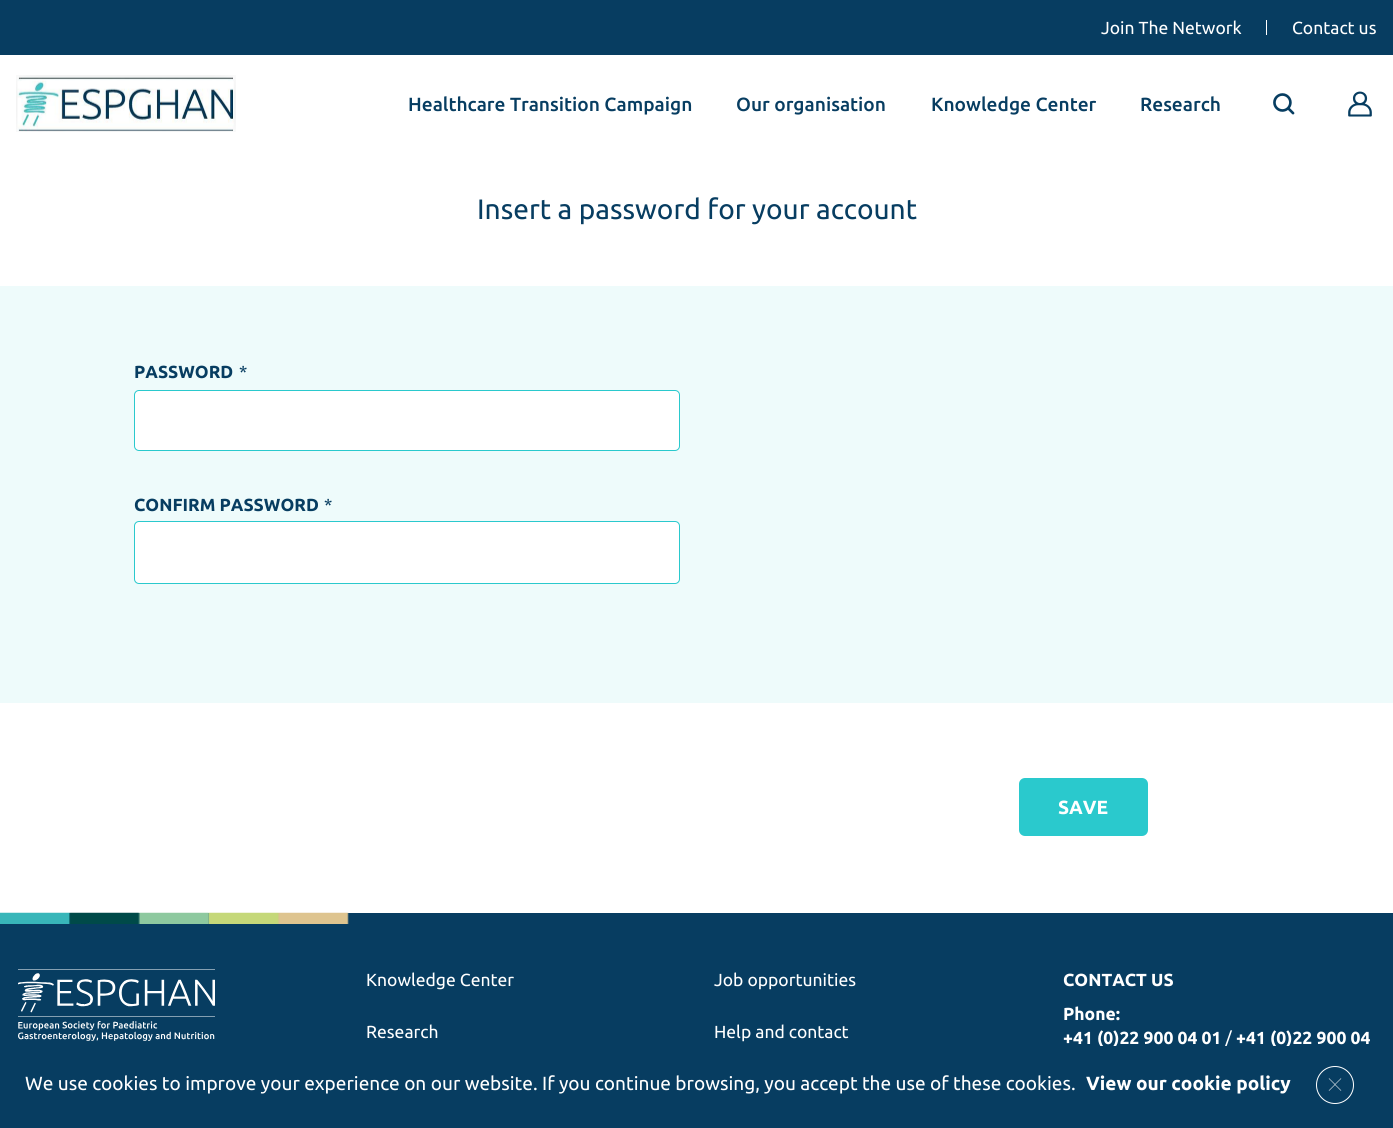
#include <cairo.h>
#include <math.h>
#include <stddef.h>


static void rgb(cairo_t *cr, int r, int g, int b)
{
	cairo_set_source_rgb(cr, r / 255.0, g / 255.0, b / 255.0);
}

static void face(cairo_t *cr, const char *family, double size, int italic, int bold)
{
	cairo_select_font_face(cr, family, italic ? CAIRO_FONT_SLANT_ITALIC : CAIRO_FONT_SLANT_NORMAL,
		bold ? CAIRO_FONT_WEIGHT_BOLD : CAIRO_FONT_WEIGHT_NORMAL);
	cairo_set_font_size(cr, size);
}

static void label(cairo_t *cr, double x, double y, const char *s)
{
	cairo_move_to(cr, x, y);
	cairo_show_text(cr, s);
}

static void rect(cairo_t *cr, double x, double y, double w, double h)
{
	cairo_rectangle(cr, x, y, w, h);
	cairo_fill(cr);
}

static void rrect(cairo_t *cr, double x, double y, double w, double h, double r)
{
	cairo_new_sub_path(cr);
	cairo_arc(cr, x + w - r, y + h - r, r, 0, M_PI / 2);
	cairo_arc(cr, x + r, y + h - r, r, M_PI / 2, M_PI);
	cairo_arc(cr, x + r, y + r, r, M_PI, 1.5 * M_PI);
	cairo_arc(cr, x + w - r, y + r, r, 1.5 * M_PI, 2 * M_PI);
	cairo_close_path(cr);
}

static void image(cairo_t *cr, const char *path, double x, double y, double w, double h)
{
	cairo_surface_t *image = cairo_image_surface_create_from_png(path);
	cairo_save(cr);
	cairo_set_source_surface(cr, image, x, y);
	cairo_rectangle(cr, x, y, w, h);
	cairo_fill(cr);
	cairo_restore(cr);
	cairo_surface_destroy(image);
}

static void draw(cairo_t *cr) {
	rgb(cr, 255, 255, 255);
	cairo_paint(cr);
	rgb(cr, 7, 61, 97);
	rect(cr, 0, 0, 1393, 55);
	face(cr, "Ubuntu", 17.5, 0, 0);
	rgb(cr, 255, 255, 255);
	label(cr, 1101, 34, "Join The Network");
	rect(cr, 1266, 20, 1, 15);
	label(cr, 1292, 34, "Contact us");
	image(cr, "image0.png", 16, 75, 220, 57);
	face(cr, "Ubuntu Medium", 19.1, 0, 0);
	rgb(cr, 7, 61, 97);
	label(cr, 408, 111, "Healthcare Transition Campaign");
	label(cr, 736, 111, "Our organisation");
	label(cr, 931, 111, "Knowledge Center");
	label(cr, 1140, 111, "Research");
	image(cr, "image1.png", 1273, 93, 22, 22);
	image(cr, "image2.png", 1348, 91, 24, 26);
	face(cr, "Ubuntu", 28.1, 0, 0);
	label(cr, 477, 219, "Insert a password for your account");
	rgb(cr, 238, 251, 251);
	rect(cr, 0, 286, 1393, 417);
	face(cr, "Ubuntu", 17.5, 0, 1);
	rgb(cr, 7, 61, 97);
	label(cr, 134, 378, "PASSWORD");
	face(cr, "Ubuntu", 17.5, 1, 0);
	label(cr, 237, 378, "*");
	rgb(cr, 255, 255, 255);
	rrect(cr, 134.5, 390.5, 545, 60, 4.5);
	cairo_fill_preserve(cr);
	rgb(cr, 42, 201, 205);
	cairo_set_line_width(cr, 1);
	cairo_stroke(cr);
	face(cr, "Ubuntu", 17.5, 0, 1);
	rgb(cr, 7, 61, 97);
	label(cr, 134, 511, "CONFIRM PASSWORD");
	face(cr, "Ubuntu", 17.5, 1, 0);
	label(cr, 322, 511, "*");
	rgb(cr, 255, 255, 255);
	rrect(cr, 134.5, 521.5, 545, 62, 4.5);
	cairo_fill_preserve(cr);
	rgb(cr, 42, 201, 205);
	cairo_stroke(cr);
	rrect(cr, 1020.5, 779.5, 126, 55, 4.5);
	cairo_fill_preserve(cr);
	cairo_set_line_width(cr, 3);
	cairo_stroke(cr);
	face(cr, "Ubuntu", 19.05, 0, 1);
	rgb(cr, 255, 255, 255);
	label(cr, 1058, 814, "SAVE");
	rgb(cr, 7, 61, 97);
	rect(cr, 0, 913, 1393, 133);
	image(cr, "image3.png", 0, 912, 349, 12);
	image(cr, "image4.png", 18, 969, 197, 72);
	face(cr, "Ubuntu", 17.5, 0, 0);
	rgb(cr, 255, 255, 255);
	label(cr, 366, 986, "Knowledge Center");
	label(cr, 366, 1038, "Research");
	label(cr, 714, 986, "Job opportunities");
	label(cr, 714, 1038, "Help and contact");
	face(cr, "Ubuntu", 17.5, 0, 1);
	label(cr, 1063, 986, "CONTACT US");
	label(cr, 1063, 1020, "Phone:");
	label(cr, 1063, 1044, "+41 (0)22 900 04 01");
	face(cr, "Ubuntu", 17.5, 0, 0);
	label(cr, 1225, 1044, "/");
	face(cr, "Ubuntu", 17.5, 0, 1);
	label(cr, 1236, 1044, "+41 (0)22 900 04");
	rgb(cr, 7, 61, 97);
	rect(cr, 0, 1046, 1393, 82);
	face(cr, "Ubuntu", 19.05, 0, 0);
	rgb(cr, 255, 255, 255);
	label(cr, 25, 1090, "We use cookies to improve your experience on our website. If you continue browsing, you accept the use of these cookies.");
	face(cr, "Ubuntu", 19.05, 0, 1);
	label(cr, 1086, 1090, "View our cookie policy");
	cairo_new_path(cr);
	cairo_arc(cr, 1335, 1085, 18.5, 0, 2 * M_PI);
	cairo_set_line_width(cr, 1);
	cairo_stroke(cr);
	image(cr, "image5.png", 1328, 1078, 14, 13);
}

int main(void) {
	cairo_surface_t *surface = cairo_image_surface_create(CAIRO_FORMAT_RGB24, 1393, 1128);
	cairo_t *cr = cairo_create(surface);
	cairo_font_options_t *options = cairo_font_options_create();
	cairo_font_options_set_hint_metrics(options, CAIRO_HINT_METRICS_OFF);
	cairo_font_options_set_hint_style(options, CAIRO_HINT_STYLE_NONE);
	cairo_set_font_options(cr, options);
	cairo_set_miter_limit(cr, 4);
	draw(cr);
	cairo_surface_write_to_png(surface, "render.png");
	cairo_font_options_destroy(options);
	cairo_destroy(cr);
	cairo_surface_destroy(surface);
	return 0;
}
